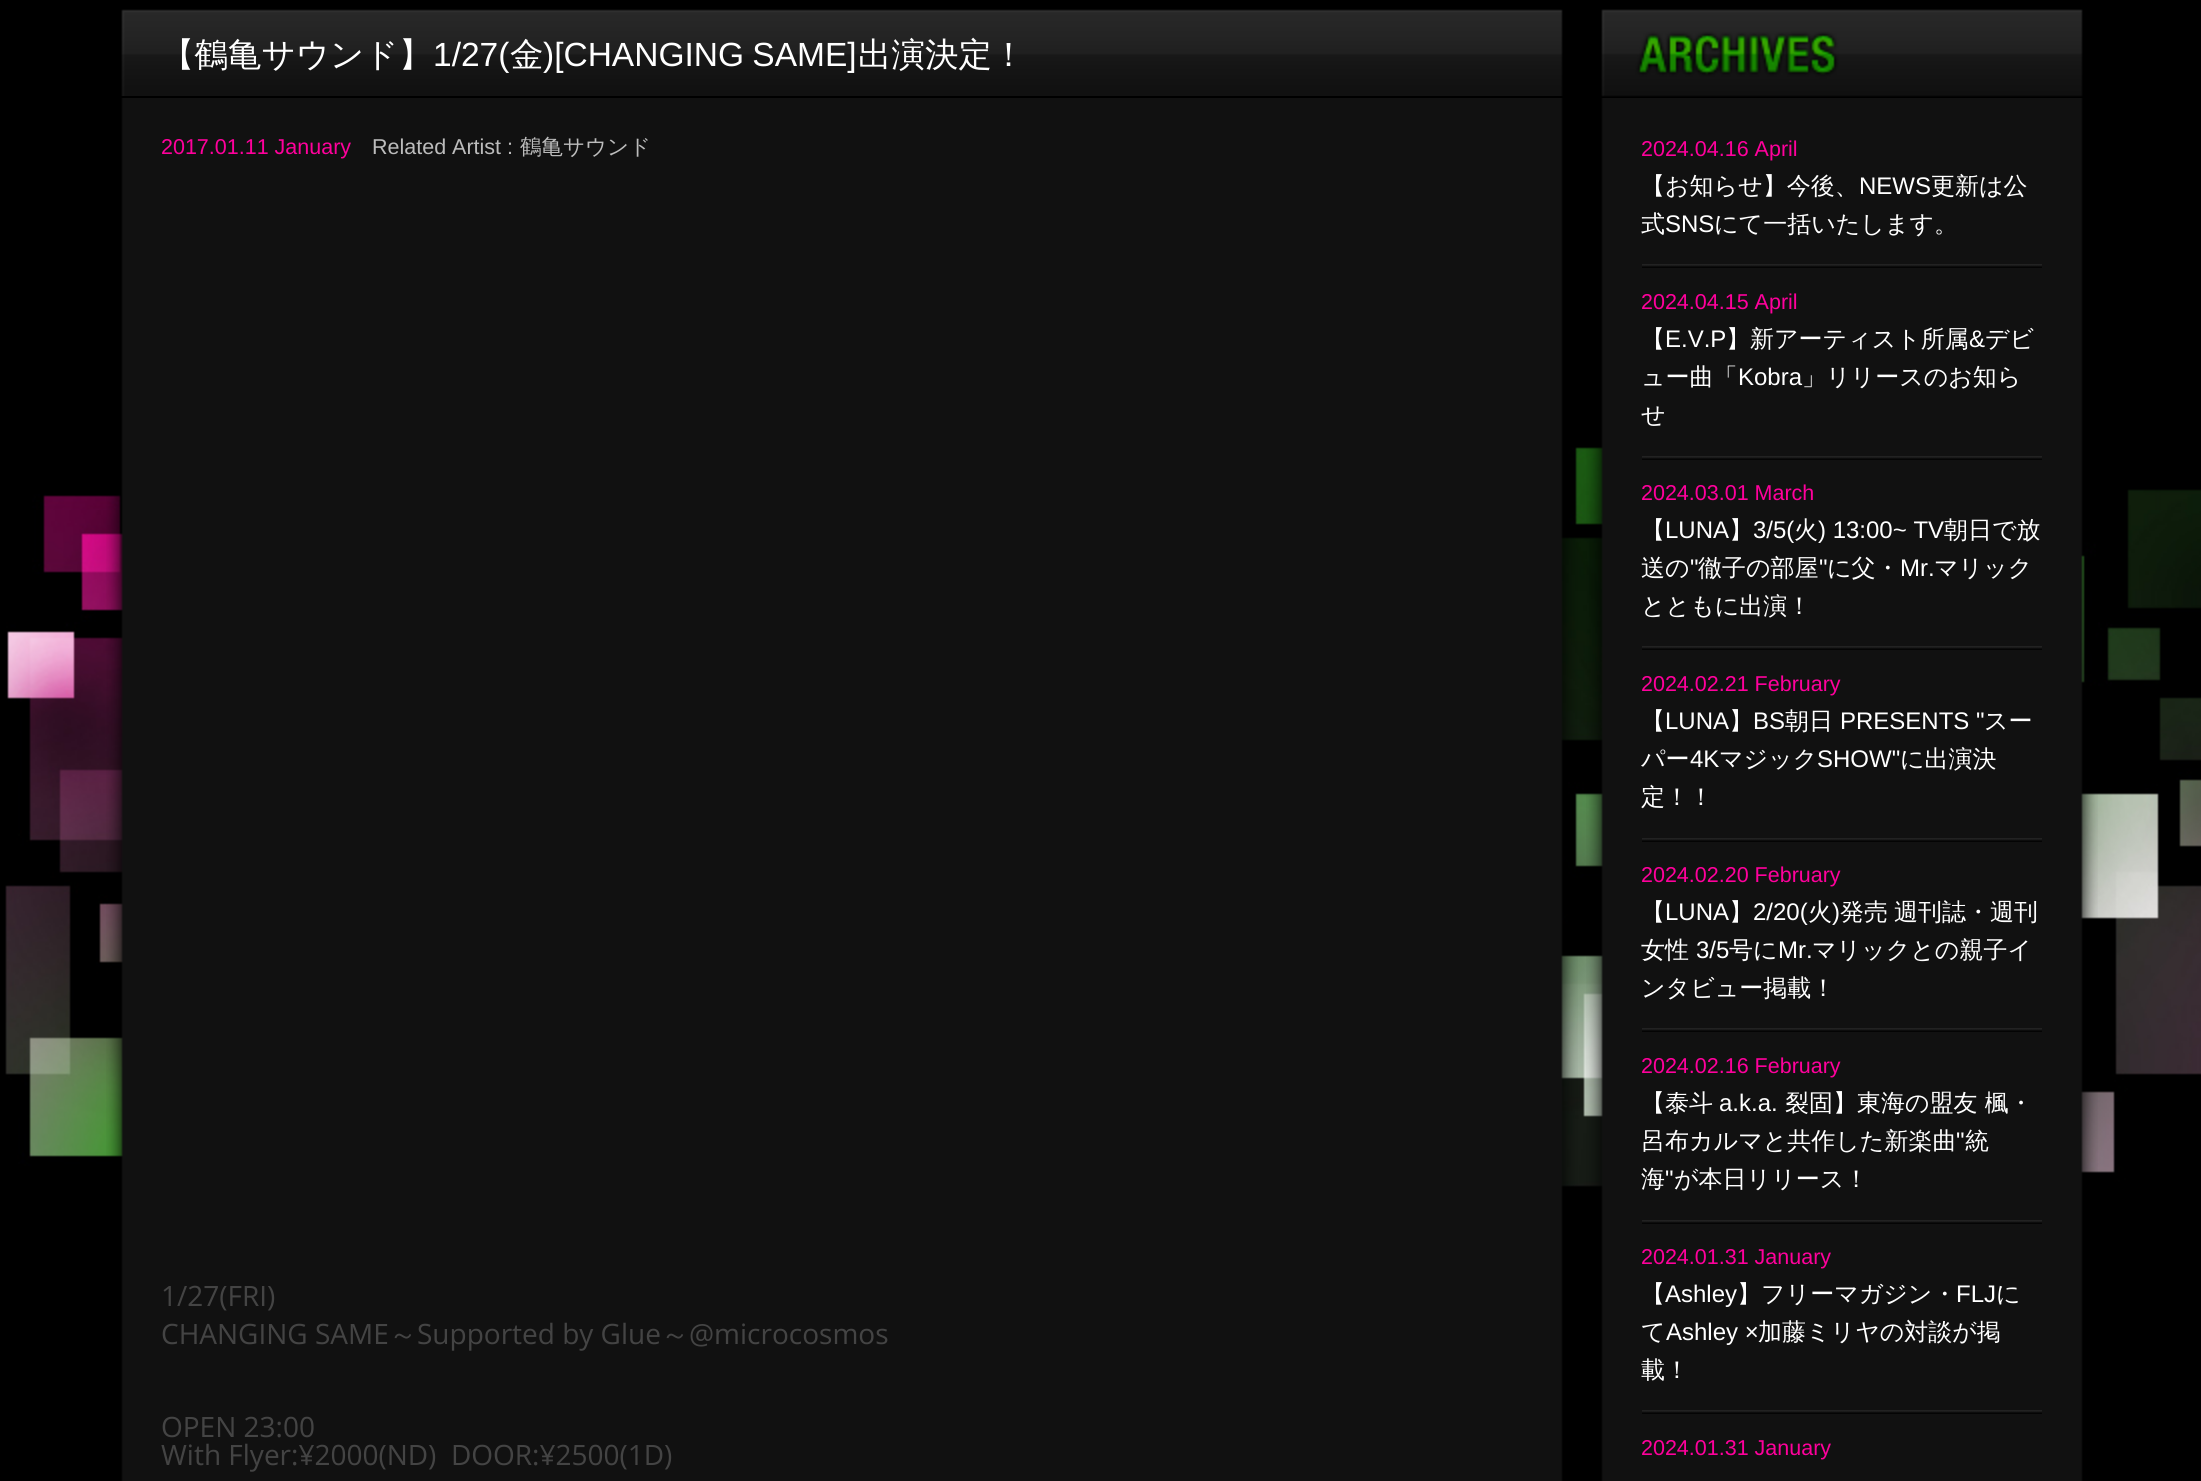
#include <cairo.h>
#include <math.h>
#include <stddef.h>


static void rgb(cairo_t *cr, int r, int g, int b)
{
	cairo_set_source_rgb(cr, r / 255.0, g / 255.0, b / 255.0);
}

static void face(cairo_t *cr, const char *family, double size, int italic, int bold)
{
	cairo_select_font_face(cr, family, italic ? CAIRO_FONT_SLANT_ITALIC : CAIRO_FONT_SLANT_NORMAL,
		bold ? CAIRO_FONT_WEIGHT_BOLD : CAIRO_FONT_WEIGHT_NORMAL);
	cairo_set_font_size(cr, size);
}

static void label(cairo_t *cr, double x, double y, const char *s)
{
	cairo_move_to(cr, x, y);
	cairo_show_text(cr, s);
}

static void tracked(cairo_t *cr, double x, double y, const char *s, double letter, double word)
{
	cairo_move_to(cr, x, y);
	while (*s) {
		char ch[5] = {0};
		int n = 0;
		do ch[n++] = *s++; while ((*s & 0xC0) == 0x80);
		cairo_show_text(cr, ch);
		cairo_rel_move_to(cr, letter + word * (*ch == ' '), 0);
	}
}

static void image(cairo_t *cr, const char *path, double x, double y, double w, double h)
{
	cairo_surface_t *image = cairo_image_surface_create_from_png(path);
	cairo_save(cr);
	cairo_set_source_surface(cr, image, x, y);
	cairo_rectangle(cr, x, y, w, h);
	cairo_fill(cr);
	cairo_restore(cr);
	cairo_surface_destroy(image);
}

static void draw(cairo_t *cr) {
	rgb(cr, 0, 0, 0);
	cairo_paint(cr);
	image(cr, "image0.png", 5, 447, 2196, 749);
	image(cr, "image1.png", 121, 9, 1442, 87);
	face(cr, "WenQuanYi Zen Hei Medium", 33.5, 0, 0);
	rgb(cr, 255, 255, 255);
	label(cr, 161, 66, "【鶴亀サウンド】");
	face(cr, "Liberation Sans", 33.5, 0, 0);
	label(cr, 433, 66, "1/27(");
	face(cr, "WenQuanYi Zen Hei Medium", 33.5, 0, 0);
	label(cr, 510, 66, "金");
	face(cr, "Liberation Sans", 33.5, 0, 0);
	tracked(cr, 543, 66, ")[CHANGING SAME]", 0, -1);
	face(cr, "WenQuanYi Zen Hei Medium", 33.5, 0, 0);
	label(cr, 858, 66, "出演決定！");
	image(cr, "image2.png", 106, 98, 1472, 1383);
	face(cr, "Liberation Sans", 21.5, 0, 0);
	rgb(cr, 255, 0, 156);
	label(cr, 161, 154, "2017.01.11 January");
	rgb(cr, 188, 188, 188);
	label(cr, 372, 154, "Related Artist :");
	face(cr, "WenQuanYi Zen Hei Medium", 21.5, 0, 0);
	label(cr, 520, 154, "鶴亀サウンド");
	face(cr, "Open Sans", 28, 0, 0);
	rgb(cr, 68, 68, 68);
	label(cr, 161, 1306, "1/27(FRI)");
	label(cr, 161, 1344, "CHANGING SAME");
	face(cr, "WenQuanYi Zen Hei Medium", 28, 0, 0);
	label(cr, 389, 1344, "～");
	face(cr, "Open Sans", 28, 0, 0);
	label(cr, 417, 1344, "Supported by Glue");
	face(cr, "WenQuanYi Zen Hei Medium", 28, 0, 0);
	label(cr, 661, 1344, "～");
	face(cr, "Open Sans", 28, 0, 0);
	label(cr, 689, 1344, "@microcosmos");
	label(cr, 161, 1437, "OPEN 23:00");
	label(cr, 161, 1465, "With Flyer:¥2000(ND)  DOOR:¥2500(1D)");
	image(cr, "image3.png", 1601, 9, 482, 88);
	image(cr, "image4.png", 1586, 98, 512, 1383);
	image(cr, "image5.png", 1642, 264, 400, 4);
	face(cr, "Liberation Sans", 21.5, 0, 0);
	rgb(cr, 255, 0, 156);
	label(cr, 1641, 156, "2024.04.16 April");
	face(cr, "WenQuanYi Zen Hei Medium", 24, 0, 0);
	rgb(cr, 255, 255, 255);
	label(cr, 1641, 194, "【お知らせ】今後、");
	face(cr, "Liberation Sans", 24, 0, 0);
	label(cr, 1859, 194, "NEWS");
	face(cr, "WenQuanYi Zen Hei Medium", 24, 0, 0);
	label(cr, 1931, 194, "更新は公");
	label(cr, 1641, 232, "式");
	face(cr, "Liberation Sans", 24, 0, 0);
	label(cr, 1665, 232, "SNS");
	face(cr, "WenQuanYi Zen Hei Medium", 24, 0, 0);
	label(cr, 1714, 232, "にて一括いたします。");
	image(cr, "image5.png", 1642, 456, 400, 4);
	face(cr, "Liberation Sans", 21.5, 0, 0);
	rgb(cr, 255, 0, 156);
	label(cr, 1641, 309, "2024.04.15 April");
	face(cr, "WenQuanYi Zen Hei Medium", 24, 0, 0);
	rgb(cr, 255, 255, 255);
	label(cr, 1641, 347, "【");
	face(cr, "Liberation Sans", 24, 0, 0);
	label(cr, 1665, 347, "E.V.P");
	face(cr, "WenQuanYi Zen Hei Medium", 24, 0, 0);
	label(cr, 1726, 347, "】新アーティスト所属");
	face(cr, "Liberation Sans", 24, 0, 0);
	label(cr, 1969, 347, "&");
	face(cr, "WenQuanYi Zen Hei Medium", 24, 0, 0);
	label(cr, 1985, 347, "デビ");
	label(cr, 1641, 385, "ュー曲「");
	face(cr, "Liberation Sans", 24, 0, 0);
	label(cr, 1738, 385, "Kobra");
	face(cr, "WenQuanYi Zen Hei Medium", 24, 0, 0);
	label(cr, 1802, 385, "」リリースのお知ら");
	label(cr, 1641, 423, "せ");
	image(cr, "image5.png", 1642, 646, 400, 4);
	face(cr, "Liberation Sans", 21.5, 0, 0);
	rgb(cr, 255, 0, 156);
	label(cr, 1641, 500, "2024.03.01 March");
	face(cr, "WenQuanYi Zen Hei Medium", 24, 0, 0);
	rgb(cr, 255, 255, 255);
	label(cr, 1641, 538, "【");
	face(cr, "Liberation Sans", 24, 0, 0);
	label(cr, 1665, 538, "LUNA");
	face(cr, "WenQuanYi Zen Hei Medium", 24, 0, 0);
	label(cr, 1729, 538, "】");
	face(cr, "Liberation Sans", 24, 0, 0);
	label(cr, 1753, 538, "3/5(");
	face(cr, "WenQuanYi Zen Hei Medium", 24, 0, 0);
	label(cr, 1794, 538, "火");
	face(cr, "Liberation Sans", 24, 0, 0);
	label(cr, 1818, 538, ") 13:00~ TV");
	face(cr, "WenQuanYi Zen Hei Medium", 24, 0, 0);
	label(cr, 1944, 538, "朝日で放");
	label(cr, 1641, 576, "送の");
	face(cr, "Liberation Sans", 24, 0, 0);
	label(cr, 1690, 576, "\"");
	face(cr, "WenQuanYi Zen Hei Medium", 24, 0, 0);
	label(cr, 1698, 576, "徹子の部屋");
	face(cr, "Liberation Sans", 24, 0, 0);
	label(cr, 1819, 576, "\"");
	face(cr, "WenQuanYi Zen Hei Medium", 24, 0, 0);
	label(cr, 1827, 576, "に父・");
	face(cr, "Liberation Sans", 24, 0, 0);
	label(cr, 1900, 576, "Mr.");
	face(cr, "WenQuanYi Zen Hei Medium", 24, 0, 0);
	label(cr, 1934, 576, "マリック");
	label(cr, 1641, 614, "とともに出演！");
	image(cr, "image5.png", 1642, 838, 400, 4);
	face(cr, "Liberation Sans", 21.5, 0, 0);
	rgb(cr, 255, 0, 156);
	label(cr, 1641, 691, "2024.02.21 February");
	face(cr, "WenQuanYi Zen Hei Medium", 24, 0, 0);
	rgb(cr, 255, 255, 255);
	label(cr, 1641, 729, "【");
	face(cr, "Liberation Sans", 24, 0, 0);
	label(cr, 1665, 729, "LUNA");
	face(cr, "WenQuanYi Zen Hei Medium", 24, 0, 0);
	label(cr, 1729, 729, "】");
	face(cr, "Liberation Sans", 24, 0, 0);
	label(cr, 1753, 729, "BS");
	face(cr, "WenQuanYi Zen Hei Medium", 24, 0, 0);
	label(cr, 1785, 729, "朝日");
	face(cr, "Liberation Sans", 24, 0, 0);
	label(cr, 1840, 729, "PRESENTS \"");
	face(cr, "WenQuanYi Zen Hei Medium", 24, 0, 0);
	label(cr, 1984, 729, "スー");
	label(cr, 1641, 767, "パー");
	face(cr, "Liberation Sans", 24, 0, 0);
	label(cr, 1690, 767, "4K");
	face(cr, "WenQuanYi Zen Hei Medium", 24, 0, 0);
	label(cr, 1719, 767, "マジック");
	face(cr, "Liberation Sans", 24, 0, 0);
	label(cr, 1817, 767, "SHOW\"");
	face(cr, "WenQuanYi Zen Hei Medium", 24, 0, 0);
	label(cr, 1900, 767, "に出演決");
	label(cr, 1641, 805, "定！！");
	image(cr, "image5.png", 1642, 1028, 400, 4);
	face(cr, "Liberation Sans", 21.5, 0, 0);
	rgb(cr, 255, 0, 156);
	label(cr, 1641, 882, "2024.02.20 February");
	face(cr, "WenQuanYi Zen Hei Medium", 24, 0, 0);
	rgb(cr, 255, 255, 255);
	label(cr, 1641, 920, "【");
	face(cr, "Liberation Sans", 24, 0, 0);
	label(cr, 1665, 920, "LUNA");
	face(cr, "WenQuanYi Zen Hei Medium", 24, 0, 0);
	label(cr, 1729, 920, "】");
	face(cr, "Liberation Sans", 24, 0, 0);
	label(cr, 1753, 920, "2/20(");
	face(cr, "WenQuanYi Zen Hei Medium", 24, 0, 0);
	label(cr, 1808, 920, "火");
	face(cr, "Liberation Sans", 24, 0, 0);
	label(cr, 1832, 920, ")");
	face(cr, "WenQuanYi Zen Hei Medium", 24, 0, 0);
	label(cr, 1840, 920, "発売");
	label(cr, 1894, 920, "週刊誌・週刊");
	label(cr, 1641, 958, "女性");
	face(cr, "Liberation Sans", 24, 0, 0);
	label(cr, 1696, 958, "3/5");
	face(cr, "WenQuanYi Zen Hei Medium", 24, 0, 0);
	label(cr, 1729, 958, "号に");
	face(cr, "Liberation Sans", 24, 0, 0);
	label(cr, 1778, 958, "Mr.");
	face(cr, "WenQuanYi Zen Hei Medium", 24, 0, 0);
	label(cr, 1812, 958, "マリックとの親子イ");
	label(cr, 1641, 996, "ンタビュー掲載！");
	image(cr, "image5.png", 1642, 1220, 400, 4);
	face(cr, "Liberation Sans", 21.5, 0, 0);
	rgb(cr, 255, 0, 156);
	label(cr, 1641, 1073, "2024.02.16 February");
	face(cr, "WenQuanYi Zen Hei Medium", 24, 0, 0);
	rgb(cr, 255, 255, 255);
	label(cr, 1641, 1111, "【泰斗");
	face(cr, "Liberation Sans", 24, 0, 0);
	label(cr, 1719, 1111, "a.k.a.");
	face(cr, "WenQuanYi Zen Hei Medium", 24, 0, 0);
	label(cr, 1785, 1111, "裂固】東海の盟友 楓・");
	label(cr, 1641, 1149, "呂布カルマと共作した新楽曲");
	face(cr, "Liberation Sans", 24, 0, 0);
	label(cr, 1956, 1149, "\"");
	face(cr, "WenQuanYi Zen Hei Medium", 24, 0, 0);
	label(cr, 1965, 1149, "統");
	label(cr, 1641, 1187, "海");
	face(cr, "Liberation Sans", 24, 0, 0);
	label(cr, 1665, 1187, "\"");
	face(cr, "WenQuanYi Zen Hei Medium", 24, 0, 0);
	label(cr, 1674, 1187, "が本日リリース！");
	image(cr, "image5.png", 1642, 1410, 400, 4);
	face(cr, "Liberation Sans", 21.5, 0, 0);
	rgb(cr, 255, 0, 156);
	label(cr, 1641, 1264, "2024.01.31 January");
	face(cr, "WenQuanYi Zen Hei Medium", 24, 0, 0);
	rgb(cr, 255, 255, 255);
	label(cr, 1641, 1302, "【");
	face(cr, "Liberation Sans", 24, 0, 0);
	label(cr, 1665, 1302, "Ashley");
	face(cr, "WenQuanYi Zen Hei Medium", 24, 0, 0);
	label(cr, 1737, 1302, "】フリーマガジン・");
	face(cr, "Liberation Sans", 24, 0, 0);
	label(cr, 1956, 1302, "FLJ");
	face(cr, "WenQuanYi Zen Hei Medium", 24, 0, 0);
	label(cr, 1996, 1302, "に");
	label(cr, 1641, 1340, "て");
	face(cr, "Liberation Sans", 24, 0, 0);
	label(cr, 1666, 1340, "Ashley ×");
	face(cr, "WenQuanYi Zen Hei Medium", 24, 0, 0);
	label(cr, 1758, 1340, "加藤ミリヤの対談が掲");
	label(cr, 1641, 1378, "載！");
	face(cr, "Liberation Sans", 21.5, 0, 0);
	rgb(cr, 255, 0, 156);
	label(cr, 1641, 1455, "2024.01.31 January");
}

int main(void) {
	cairo_surface_t *surface = cairo_image_surface_create(CAIRO_FORMAT_RGB24, 2201, 1481);
	cairo_t *cr = cairo_create(surface);
	cairo_font_options_t *options = cairo_font_options_create();
	cairo_font_options_set_hint_metrics(options, CAIRO_HINT_METRICS_OFF);
	cairo_font_options_set_hint_style(options, CAIRO_HINT_STYLE_NONE);
	cairo_set_font_options(cr, options);
	cairo_set_miter_limit(cr, 4);
	draw(cr);
	cairo_surface_write_to_png(surface, "render.png");
	cairo_font_options_destroy(options);
	cairo_destroy(cr);
	cairo_surface_destroy(surface);
	return 0;
}
